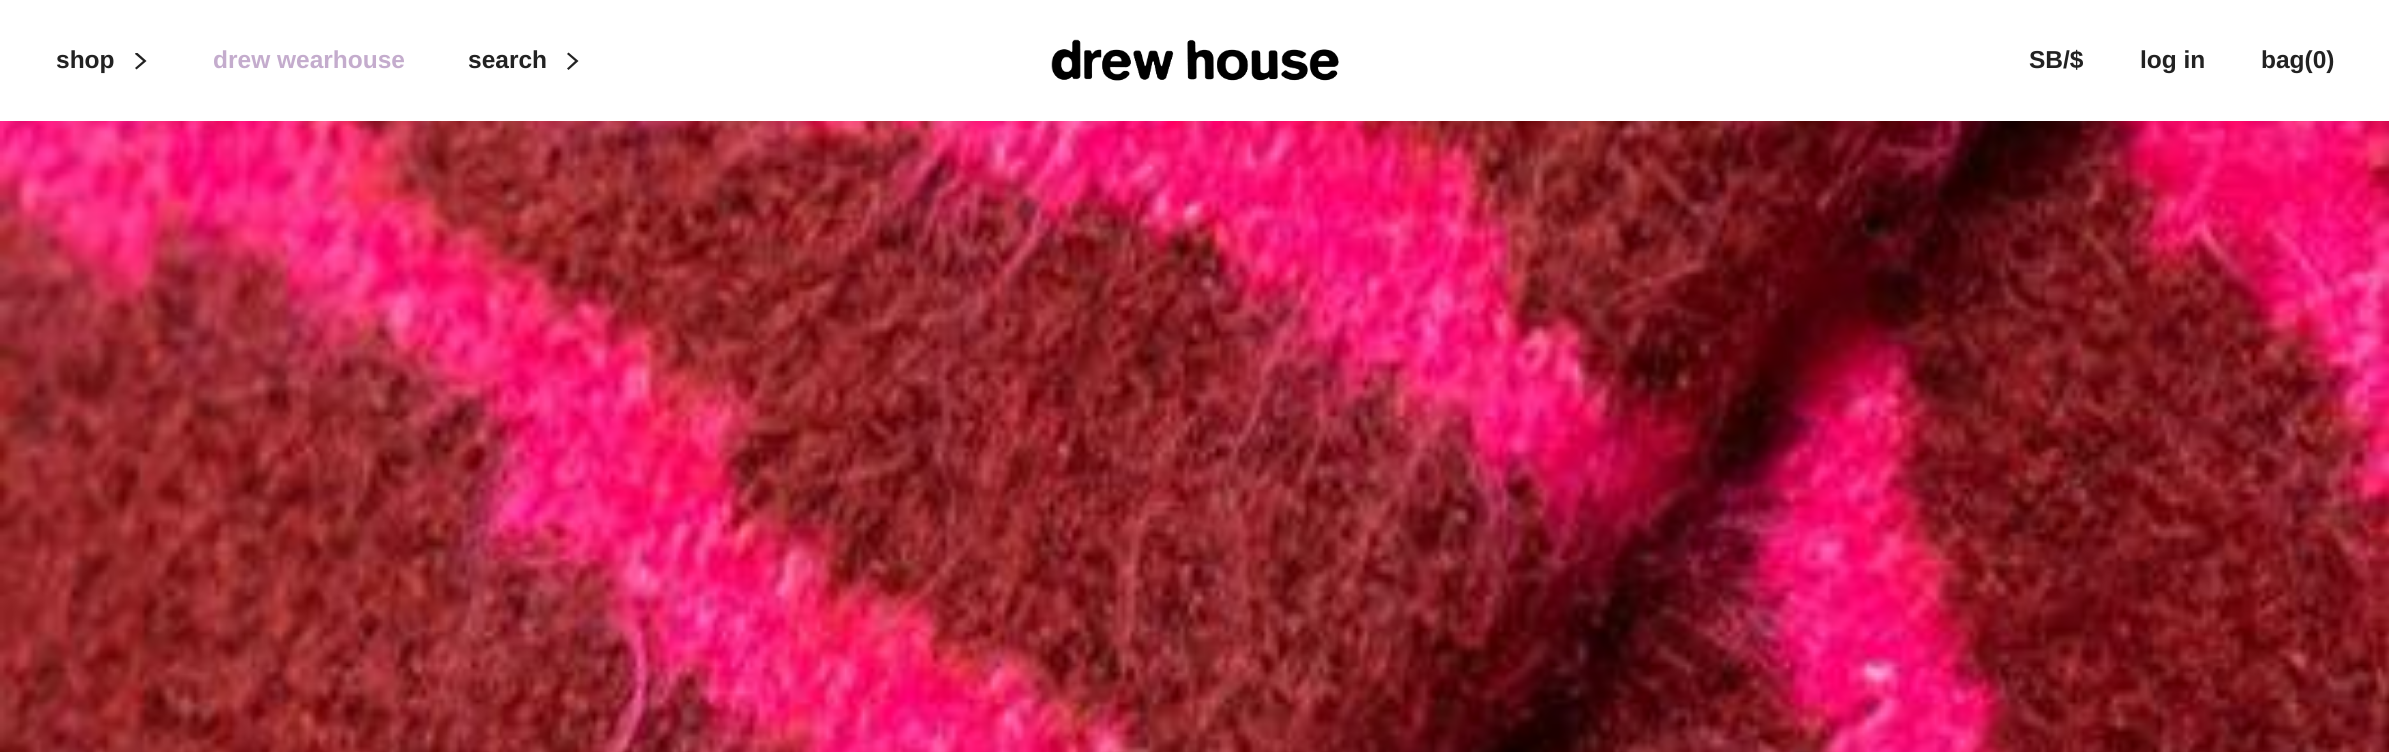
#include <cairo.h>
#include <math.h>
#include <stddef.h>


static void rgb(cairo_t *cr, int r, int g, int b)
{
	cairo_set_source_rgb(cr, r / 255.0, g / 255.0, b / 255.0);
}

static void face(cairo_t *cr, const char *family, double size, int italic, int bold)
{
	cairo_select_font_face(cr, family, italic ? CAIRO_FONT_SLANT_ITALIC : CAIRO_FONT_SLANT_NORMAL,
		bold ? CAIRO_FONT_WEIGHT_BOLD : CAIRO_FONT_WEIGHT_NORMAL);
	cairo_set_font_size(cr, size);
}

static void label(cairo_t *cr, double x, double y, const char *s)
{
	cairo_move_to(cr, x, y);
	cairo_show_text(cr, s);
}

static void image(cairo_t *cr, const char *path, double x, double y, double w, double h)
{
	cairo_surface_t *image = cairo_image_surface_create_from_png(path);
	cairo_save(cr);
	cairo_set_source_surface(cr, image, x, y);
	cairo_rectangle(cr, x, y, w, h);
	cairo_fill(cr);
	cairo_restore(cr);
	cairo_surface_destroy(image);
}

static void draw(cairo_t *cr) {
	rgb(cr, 255, 255, 255);
	cairo_paint(cr);
	face(cr, "Liberation Sans", 24.5, 0, 1);
	rgb(cr, 34, 34, 34);
	label(cr, 56, 68, "shop");
	cairo_new_path(cr);
	cairo_move_to(cr, 146.5, 61);
	cairo_line_to(cr, 137.5, 53);
	cairo_line_to(cr, 135.5, 53);
	cairo_line_to(cr, 135, 54);
	cairo_line_to(cr, 143, 61);
	cairo_line_to(cr, 135, 68);
	cairo_line_to(cr, 136.5, 69.5);
	cairo_close_path(cr);
	cairo_fill(cr);
	rgb(cr, 196, 172, 205);
	label(cr, 213, 68, "drew wearhouse");
	rgb(cr, 34, 34, 34);
	label(cr, 468, 68, "search");
	cairo_new_path(cr);
	cairo_move_to(cr, 578.5, 61);
	cairo_line_to(cr, 568.5, 70);
	cairo_line_to(cr, 567, 68.5);
	cairo_line_to(cr, 575, 61);
	cairo_line_to(cr, 567, 54);
	cairo_line_to(cr, 568.5, 52.5);
	cairo_close_path(cr);
	cairo_fill(cr);
	image(cr, "image0.png", 1051, 39, 288, 42);
	label(cr, 2029, 68, "SB/$");
	label(cr, 2140, 68, "log in");
	label(cr, 2261, 68, "bag(0)");
	image(cr, "image1.png", 0, 121, 2389, 631);
}

int main(void) {
	cairo_surface_t *surface = cairo_image_surface_create(CAIRO_FORMAT_RGB24, 2389, 752);
	cairo_t *cr = cairo_create(surface);
	cairo_font_options_t *options = cairo_font_options_create();
	cairo_font_options_set_hint_metrics(options, CAIRO_HINT_METRICS_OFF);
	cairo_font_options_set_hint_style(options, CAIRO_HINT_STYLE_NONE);
	cairo_set_font_options(cr, options);
	cairo_set_miter_limit(cr, 4);
	draw(cr);
	cairo_surface_write_to_png(surface, "render.png");
	cairo_font_options_destroy(options);
	cairo_destroy(cr);
	cairo_surface_destroy(surface);
	return 0;
}
